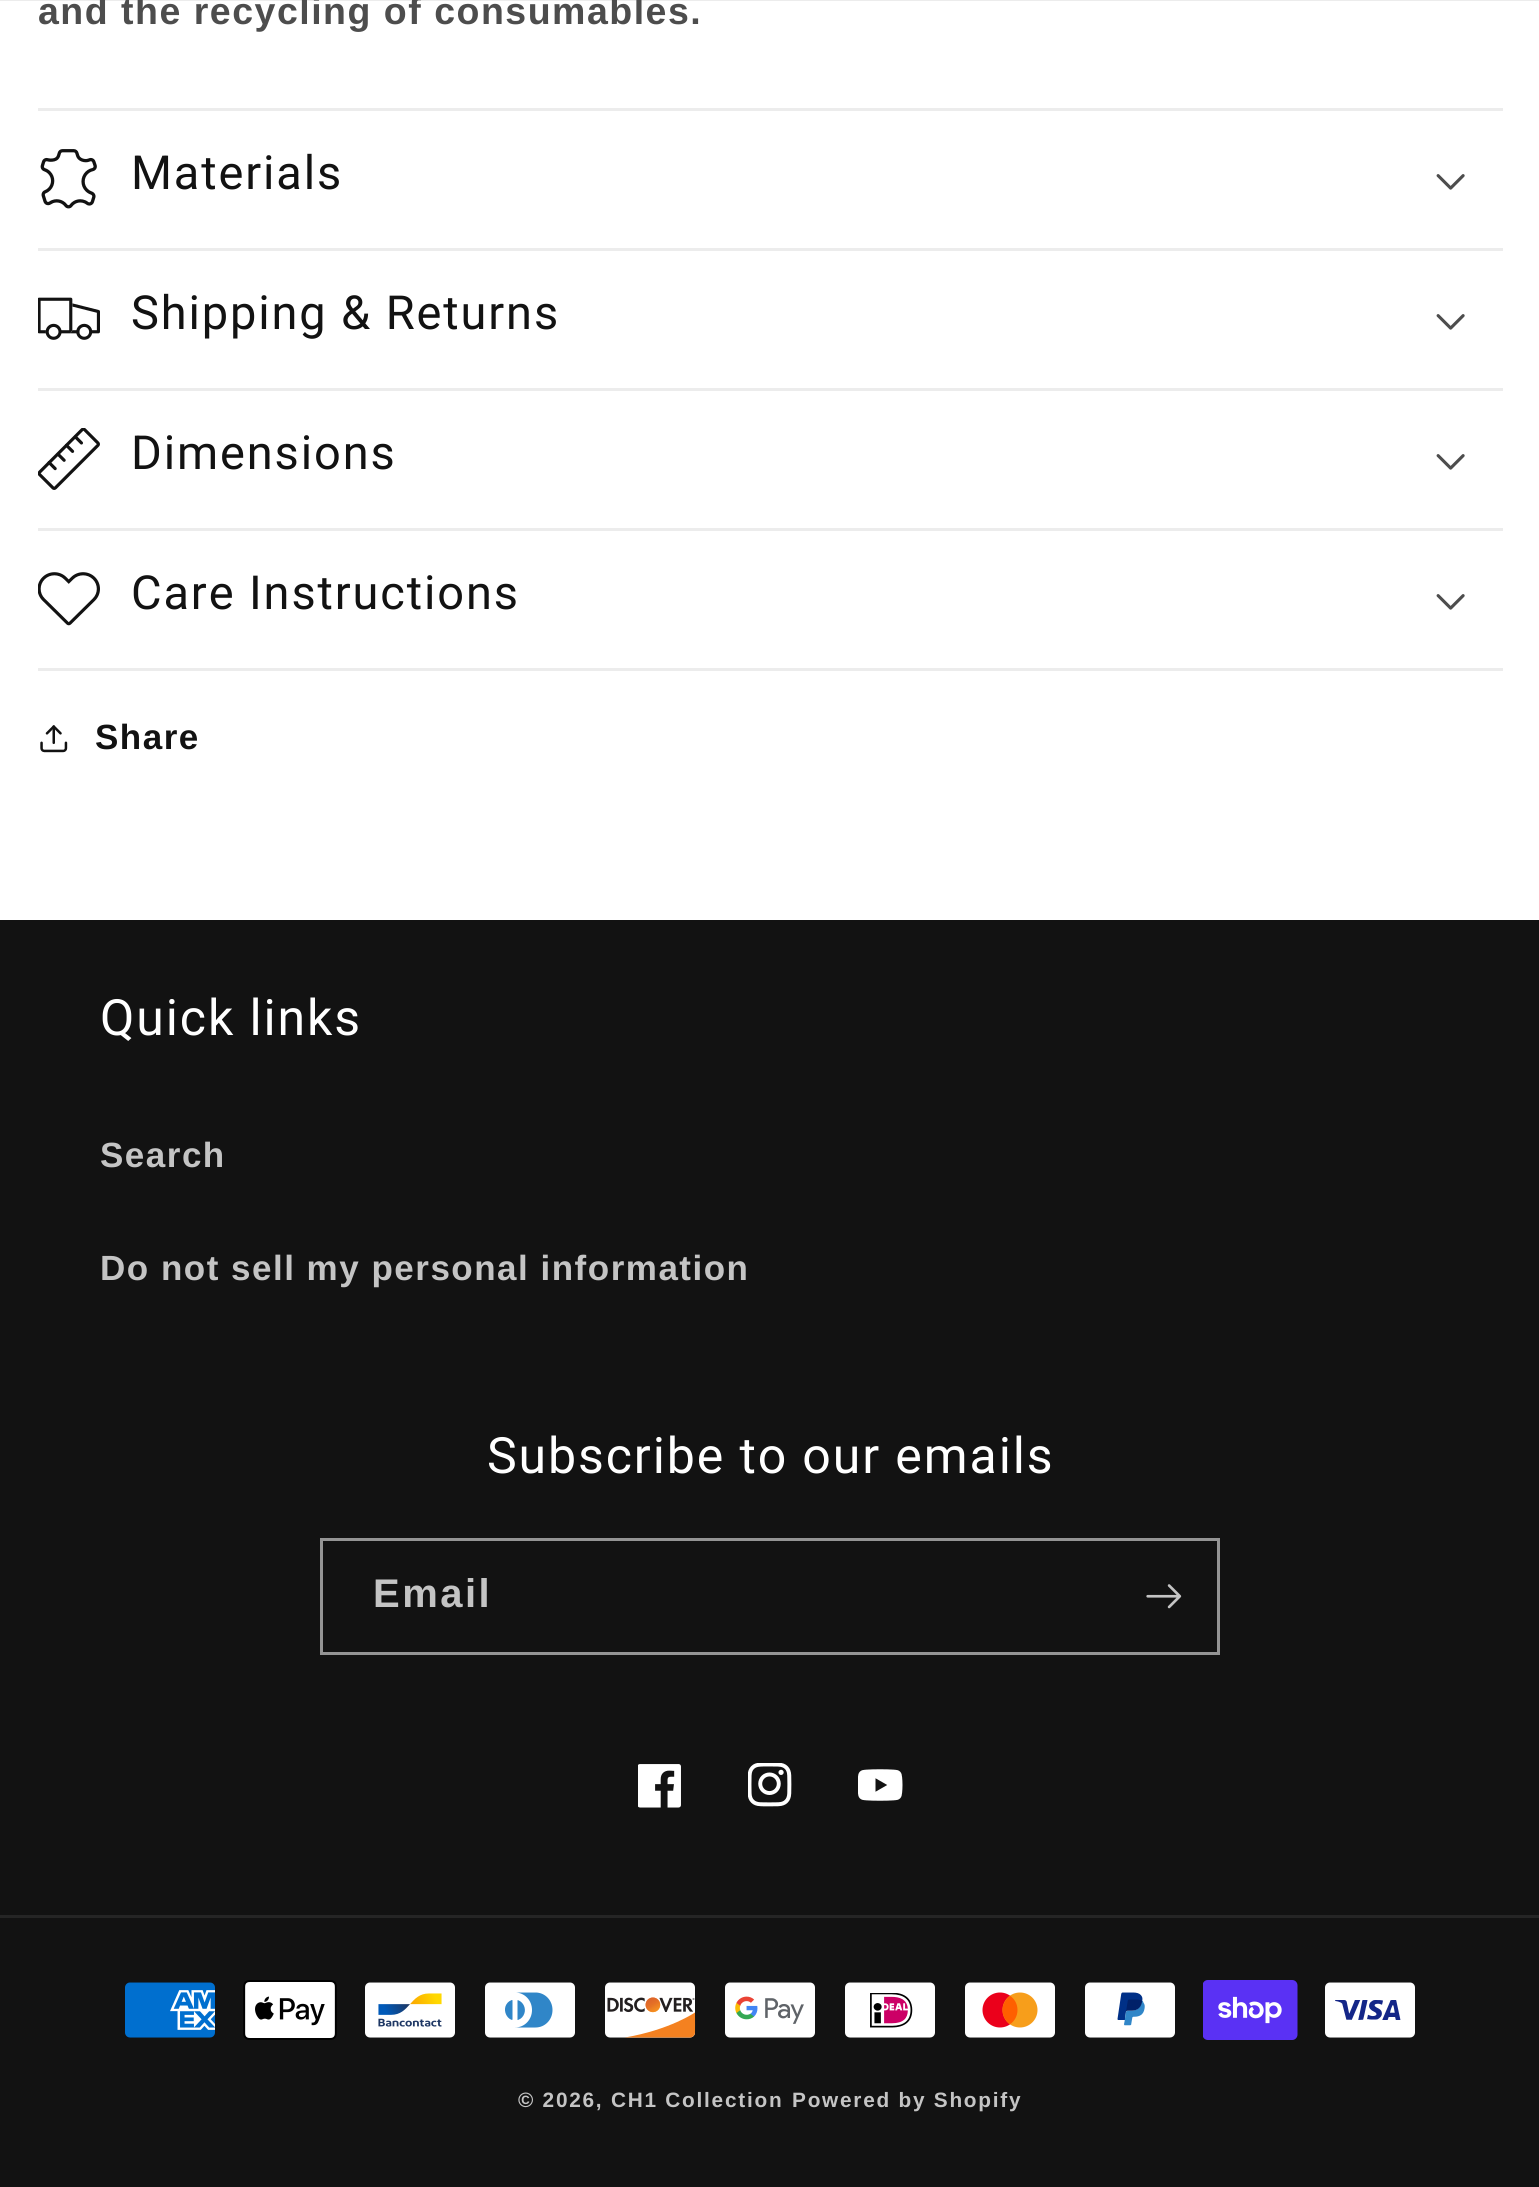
#include <cairo.h>
#include <math.h>
#include <stddef.h>


static void rgb(cairo_t *cr, int r, int g, int b)
{
	cairo_set_source_rgb(cr, r / 255.0, g / 255.0, b / 255.0);
}

static void face(cairo_t *cr, const char *family, double size, int italic, int bold)
{
	cairo_select_font_face(cr, family, italic ? CAIRO_FONT_SLANT_ITALIC : CAIRO_FONT_SLANT_NORMAL,
		bold ? CAIRO_FONT_WEIGHT_BOLD : CAIRO_FONT_WEIGHT_NORMAL);
	cairo_set_font_size(cr, size);
}

static void tracked(cairo_t *cr, double x, double y, const char *s, double letter, double word)
{
	cairo_move_to(cr, x, y);
	while (*s) {
		char ch[5] = {0};
		int n = 0;
		do ch[n++] = *s++; while ((*s & 0xC0) == 0x80);
		cairo_show_text(cr, ch);
		cairo_rel_move_to(cr, letter + word * (*ch == ' '), 0);
	}
}

static void rect(cairo_t *cr, double x, double y, double w, double h)
{
	cairo_rectangle(cr, x, y, w, h);
	cairo_fill(cr);
}

static void image(cairo_t *cr, const char *path, double x, double y, double w, double h)
{
	cairo_surface_t *image = cairo_image_surface_create_from_png(path);
	cairo_save(cr);
	cairo_set_source_surface(cr, image, x, y);
	cairo_rectangle(cr, x, y, w, h);
	cairo_fill(cr);
	cairo_restore(cr);
	cairo_surface_destroy(image);
}

static void draw(cairo_t *cr) {
	rgb(cr, 255, 255, 255);
	cairo_paint(cr);
	cairo_set_source_rgba(cr, 0.071, 0.071, 0.071, 0.08);
	rect(cr, 0, 0, 1539, 1);
	face(cr, "Liberation Sans", 37.5, 0, 1);
	rgb(cr, 77, 77, 77);
	tracked(cr, 38, 24, "and the recycling of consumables.", 1.5, 0);
	rgb(cr, 236, 236, 236);
	rect(cr, 38, 108, 1465, 3);
	rect(cr, 38, 248, 1465, 3);
	image(cr, "image0.png", 40, 149, 57, 60);
	face(cr, "Roboto", 46.9, 0, 0);
	rgb(cr, 18, 18, 18);
	tracked(cr, 131, 189, "Materials", 1.9, 0);
	image(cr, "image1.png", 1436, 174, 29, 16);
	rgb(cr, 236, 236, 236);
	rect(cr, 38, 388, 1465, 3);
	image(cr, "image2.png", 38, 297, 62, 43);
	rgb(cr, 18, 18, 18);
	tracked(cr, 131, 329, "Shipping & Returns", 1.9, 0);
	image(cr, "image1.png", 1436, 314, 29, 16);
	rgb(cr, 236, 236, 236);
	rect(cr, 38, 528, 1465, 3);
	image(cr, "image3.png", 38, 428, 62, 62);
	rgb(cr, 18, 18, 18);
	tracked(cr, 131, 469, "Dimensions", 1.9, 0);
	image(cr, "image1.png", 1436, 454, 29, 16);
	rgb(cr, 236, 236, 236);
	rect(cr, 38, 668, 1465, 3);
	image(cr, "image4.png", 38, 572, 62, 54);
	rgb(cr, 18, 18, 18);
	tracked(cr, 131, 609, "Care Instructions", 1.9, 0);
	image(cr, "image1.png", 1436, 594, 29, 16);
	image(cr, "image5.png", 40, 725, 28, 28);
	face(cr, "Liberation Sans", 35, 0, 1);
	tracked(cr, 95, 749, "Share", 1.5, 0);
	rect(cr, 0, 920, 1539, 1267);
	face(cr, "Roboto", 50, 0, 0);
	rgb(cr, 255, 255, 255);
	tracked(cr, 100, 1035, "Quick links", 1.9, 0);
	face(cr, "Liberation Sans", 35, 0, 1);
	rgb(cr, 196, 196, 196);
	tracked(cr, 100, 1167, "Search", 1.5, 0);
	tracked(cr, 100, 1280, "Do not sell my personal information", 1.5, 0);
	face(cr, "Roboto", 50, 0, 0);
	rgb(cr, 255, 255, 255);
	tracked(cr, 487, 1473, "Subscribe to our emails", 1.9, 0);
	cairo_rectangle(cr, 321.5, 1539.5, 897, 114);
	rgb(cr, 148, 148, 148);
	cairo_set_line_width(cr, 3);
	cairo_stroke(cr);
	face(cr, "Liberation Sans", 40, 0, 1);
	rgb(cr, 196, 196, 196);
	tracked(cr, 373, 1607, "Email", 2.5, 0);
	image(cr, "image6.png", 1146, 1584, 36, 25);
	image(cr, "image7.png", 638, 1764, 43, 44);
	image(cr, "image8.png", 748, 1763, 44, 44);
	image(cr, "image9.png", 858, 1769, 45, 32);
	rgb(cr, 37, 37, 37);
	rect(cr, 0, 1915, 1539, 3);
	image(cr, "image10.png", 125, 1982, 90, 56);
	image(cr, "image11.png", 243, 1980, 94, 60);
	image(cr, "image12.png", 365, 1982, 90, 56);
	image(cr, "image13.png", 485, 1982, 90, 56);
	image(cr, "image14.png", 605, 1982, 91, 56);
	image(cr, "image15.png", 725, 1982, 90, 56);
	image(cr, "image16.png", 845, 1982, 90, 56);
	image(cr, "image17.png", 965, 1982, 90, 56);
	image(cr, "image18.png", 1085, 1982, 90, 56);
	image(cr, "image19.png", 1203, 1980, 95, 60);
	image(cr, "image20.png", 1325, 1982, 90, 56);
	face(cr, "Liberation Sans", 20.8, 0, 1);
	rgb(cr, 196, 196, 196);
	tracked(cr, 518, 2107, "© 2026, CH1 Collection", 1.75, 0);
	tracked(cr, 792, 2107, "Powered by Shopify", 1.75, 0);
}

int main(void) {
	cairo_surface_t *surface = cairo_image_surface_create(CAIRO_FORMAT_RGB24, 1539, 2187);
	cairo_t *cr = cairo_create(surface);
	cairo_font_options_t *options = cairo_font_options_create();
	cairo_font_options_set_hint_metrics(options, CAIRO_HINT_METRICS_OFF);
	cairo_font_options_set_hint_style(options, CAIRO_HINT_STYLE_NONE);
	cairo_set_font_options(cr, options);
	cairo_set_miter_limit(cr, 4);
	draw(cr);
	cairo_surface_write_to_png(surface, "render.png");
	cairo_font_options_destroy(options);
	cairo_destroy(cr);
	cairo_surface_destroy(surface);
	return 0;
}
